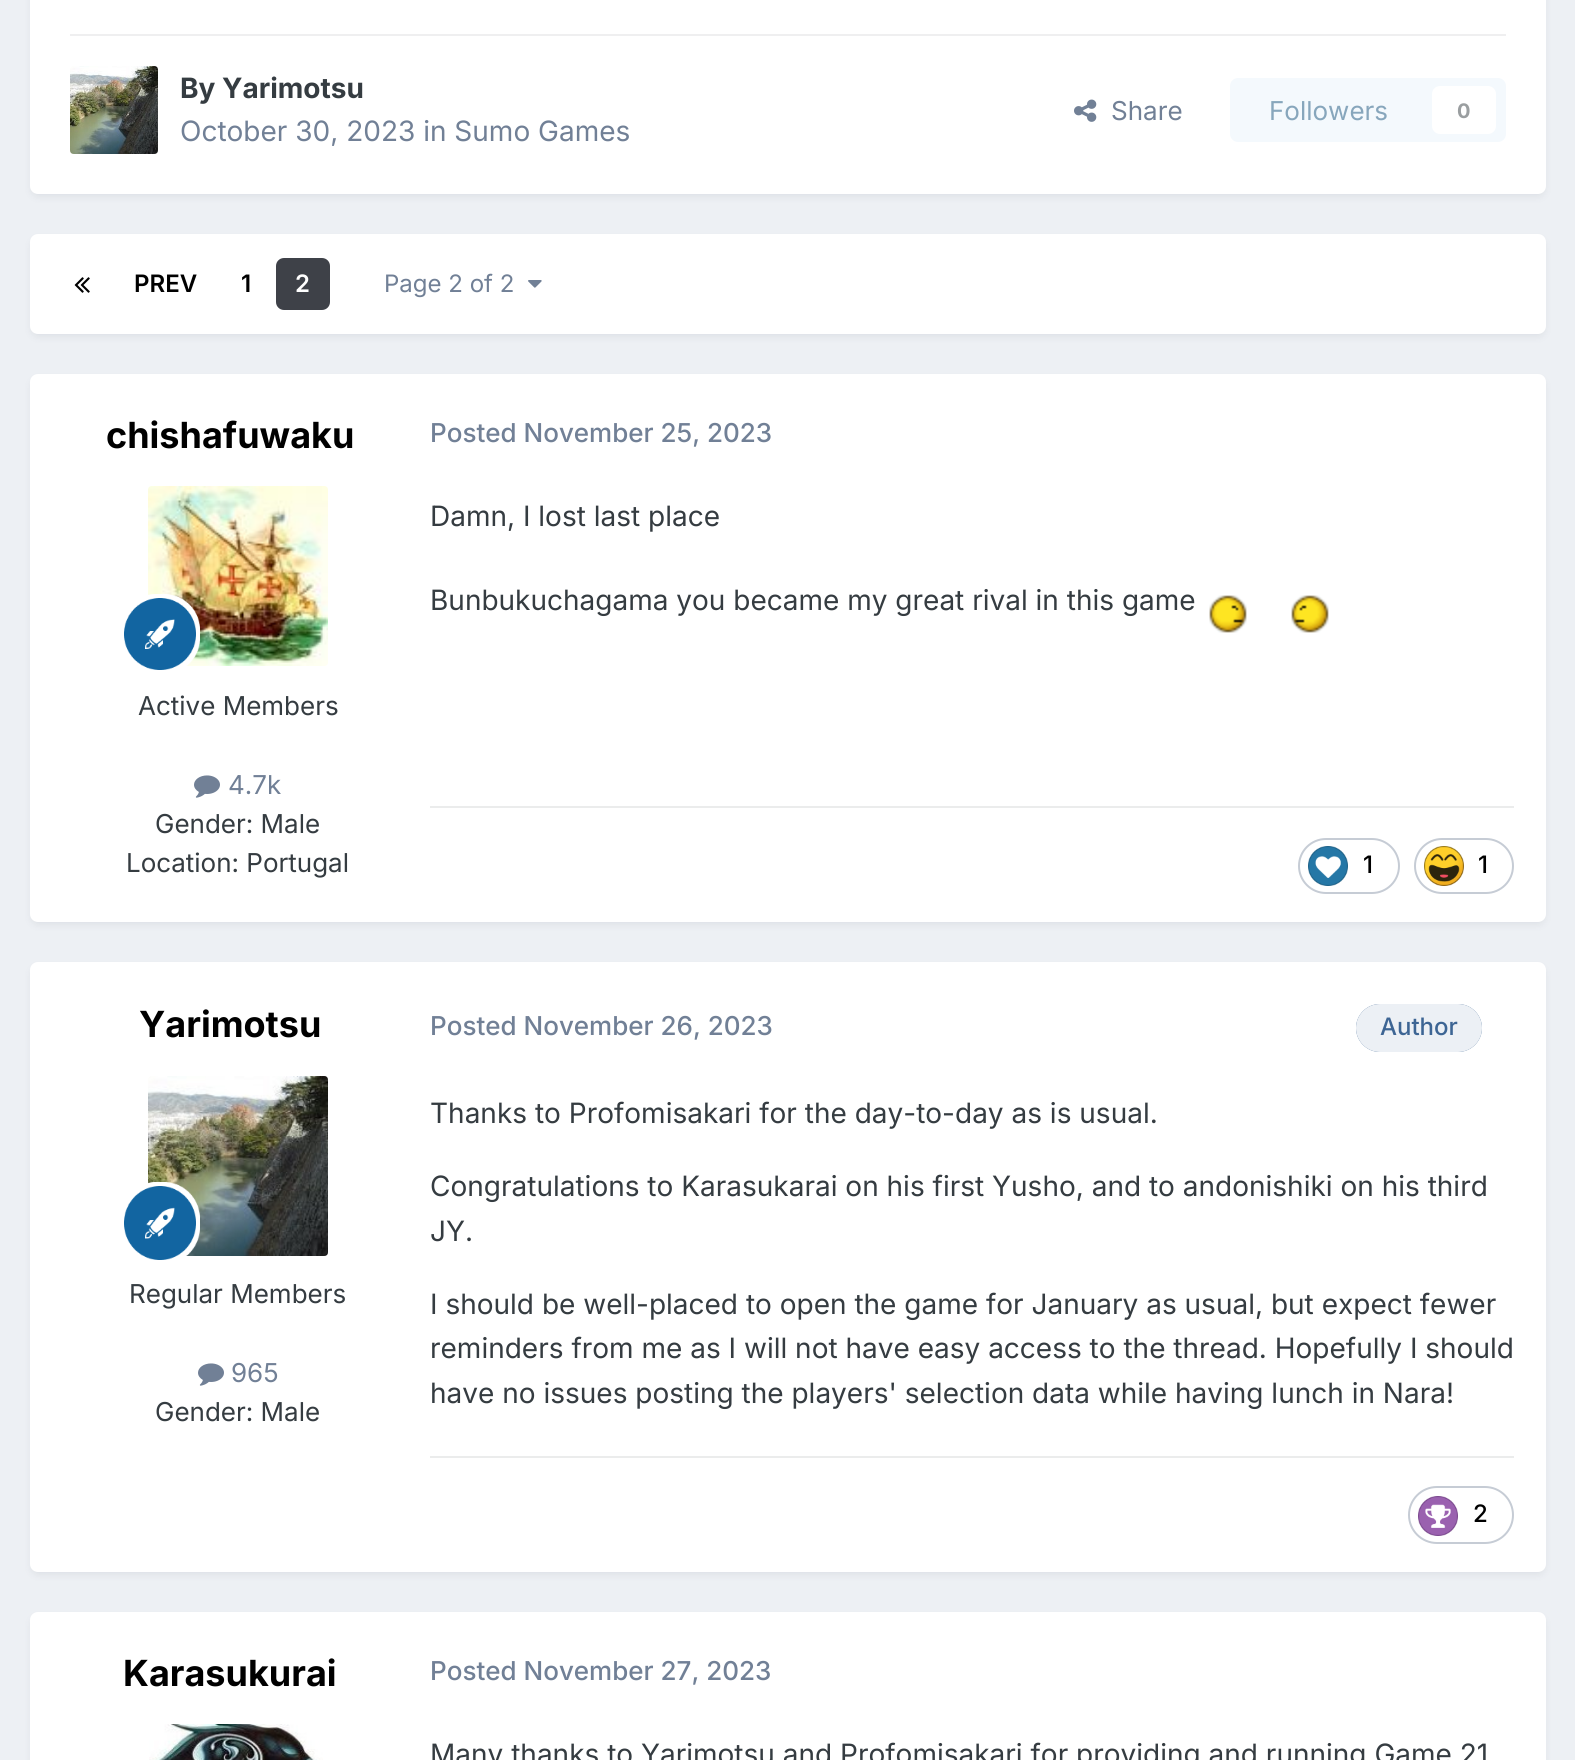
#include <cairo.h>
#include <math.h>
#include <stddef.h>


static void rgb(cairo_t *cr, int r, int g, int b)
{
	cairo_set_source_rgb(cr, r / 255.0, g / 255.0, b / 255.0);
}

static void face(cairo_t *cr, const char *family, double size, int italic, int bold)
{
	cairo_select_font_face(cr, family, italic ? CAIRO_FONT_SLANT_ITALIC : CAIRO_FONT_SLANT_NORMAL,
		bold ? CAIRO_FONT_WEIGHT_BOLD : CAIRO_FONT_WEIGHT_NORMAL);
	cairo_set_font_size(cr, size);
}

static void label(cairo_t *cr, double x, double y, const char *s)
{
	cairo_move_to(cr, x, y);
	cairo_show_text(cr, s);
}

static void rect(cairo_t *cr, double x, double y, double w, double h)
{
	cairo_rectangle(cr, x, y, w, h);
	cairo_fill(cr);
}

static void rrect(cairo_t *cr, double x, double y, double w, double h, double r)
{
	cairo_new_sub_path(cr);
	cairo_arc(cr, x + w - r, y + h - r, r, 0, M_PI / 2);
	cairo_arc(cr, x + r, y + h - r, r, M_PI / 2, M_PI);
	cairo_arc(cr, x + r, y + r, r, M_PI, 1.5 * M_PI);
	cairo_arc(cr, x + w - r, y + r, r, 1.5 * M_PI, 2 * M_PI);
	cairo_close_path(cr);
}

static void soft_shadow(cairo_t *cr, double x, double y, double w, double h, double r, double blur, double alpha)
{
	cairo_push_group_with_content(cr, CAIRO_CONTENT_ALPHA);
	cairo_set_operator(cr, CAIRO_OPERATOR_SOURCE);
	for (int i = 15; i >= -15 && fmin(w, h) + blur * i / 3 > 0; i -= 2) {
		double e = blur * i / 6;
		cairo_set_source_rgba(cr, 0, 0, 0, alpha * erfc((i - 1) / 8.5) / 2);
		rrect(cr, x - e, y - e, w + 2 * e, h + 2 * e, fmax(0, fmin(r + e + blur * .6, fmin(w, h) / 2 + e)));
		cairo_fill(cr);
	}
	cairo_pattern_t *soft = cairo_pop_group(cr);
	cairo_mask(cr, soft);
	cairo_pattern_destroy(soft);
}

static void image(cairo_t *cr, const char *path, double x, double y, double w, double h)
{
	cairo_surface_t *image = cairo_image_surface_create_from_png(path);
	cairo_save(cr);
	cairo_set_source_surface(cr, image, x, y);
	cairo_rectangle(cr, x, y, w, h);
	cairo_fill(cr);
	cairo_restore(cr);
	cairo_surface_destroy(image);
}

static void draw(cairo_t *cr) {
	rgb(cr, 237, 240, 244);
	cairo_paint(cr);
	rgb(cr, 45, 55, 72);
	soft_shadow(cr, 32, -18, 1512, 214, 6, 4, 0.1);
	rgb(cr, 255, 255, 255);
	rrect(cr, 30, -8, 1516, 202, 8);
	cairo_fill(cr);
	rgb(cr, 239, 239, 240);
	rect(cr, 70, 34, 1436, 2);
	image(cr, "image0.png", 70, 66, 88, 88);
	face(cr, "Inter", 28, 0, 1);
	rgb(cr, 53, 60, 65);
	label(cr, 180, 98, "By Yarimotsu");
	face(cr, "Inter", 28, 0, 0);
	rgb(cr, 113, 128, 150);
	label(cr, 180, 141, "October 30, 2023 in Sumo Games");
	image(cr, "image1.png", 1074, 99, 23, 23);
	face(cr, "Inter", 26, 0, 0);
	label(cr, 1111, 120, "Share");
	rgb(cr, 244, 249, 253);
	rrect(cr, 1230, 78, 276, 64, 8);
	cairo_fill(cr);
	rgb(cr, 135, 166, 188);
	label(cr, 1269, 120, "Followers");
	rgb(cr, 255, 255, 255);
	rrect(cr, 1432, 86, 64, 48, 8);
	cairo_fill(cr);
	face(cr, "Inter", 20, 0, 1);
	rgb(cr, 154, 158, 160);
	label(cr, 1457, 118, "0");
	rgb(cr, 45, 55, 72);
	soft_shadow(cr, 32, 240, 1512, 96, 6, 4, 0.1);
	rgb(cr, 255, 255, 255);
	rrect(cr, 30, 234, 1516, 100, 8);
	cairo_fill(cr);
	image(cr, "image2.png", 74, 277, 16, 16);
	face(cr, "Inter SemiBold", 24, 0, 0);
	rgb(cr, 0, 0, 0);
	label(cr, 134, 292, "PREV");
	label(cr, 241, 292, "1");
	rgb(cr, 62, 65, 72);
	rrect(cr, 276, 258, 54, 52, 8);
	cairo_fill(cr);
	rgb(cr, 255, 255, 255);
	label(cr, 295, 292, "2");
	face(cr, "Inter", 24, 0, 0);
	rgb(cr, 113, 128, 150);
	label(cr, 384, 292, "Page 2 of 2");
	image(cr, "image3.png", 528, 280, 14, 8);
	rgb(cr, 45, 55, 72);
	soft_shadow(cr, 32, 380, 1512, 544, 6, 4, 0.1);
	rgb(cr, 255, 255, 255);
	rrect(cr, 30, 374, 1516, 548, 8);
	cairo_fill(cr);
	face(cr, "Inter", 36, 0, 1);
	rgb(cr, 0, 0, 0);
	label(cr, 106, 448, "chishafuwaku");
	image(cr, "image4.png", 148, 486, 180, 180);
	image(cr, "image5.png", 124, 594, 76, 76);
	face(cr, "Inter", 26, 0, 0);
	rgb(cr, 53, 60, 65);
	label(cr, 138, 715, "Active Members");
	image(cr, "image6.png", 194, 775, 26, 23);
	rgb(cr, 113, 128, 150);
	label(cr, 228, 794, "4.7k");
	rgb(cr, 53, 60, 65);
	label(cr, 155, 833, "Gender: Male");
	label(cr, 126, 872, "Location: Portugal");
	face(cr, "Inter Medium", 26, 0, 0);
	rgb(cr, 113, 128, 150);
	label(cr, 430, 442, "Posted November 25, 2023");
	face(cr, "Inter", 28, 0, 0);
	rgb(cr, 53, 60, 65);
	label(cr, 430, 526, "Damn, I lost last place");
	label(cr, 430, 610, "Bunbukuchagama you became my great rival in this game");
	image(cr, "image7.png", 1209, 595, 120, 38);
	rgb(cr, 235, 236, 236);
	rect(cr, 430, 806, 1084, 2);
	rrect(cr, 1299, 839, 100, 54, 27);
	rgb(cr, 198, 204, 213);
	cairo_stroke(cr);
	image(cr, "image8.png", 1308, 846, 40, 40);
	face(cr, "Inter Medium", 24, 0, 0);
	rgb(cr, 0, 0, 0);
	label(cr, 1363, 873, "1");
	rrect(cr, 1415, 839, 98, 54, 27);
	rgb(cr, 198, 204, 213);
	cairo_stroke(cr);
	image(cr, "image9.png", 1424, 846, 40, 40);
	rgb(cr, 0, 0, 0);
	label(cr, 1478, 873, "1");
	rgb(cr, 45, 55, 72);
	soft_shadow(cr, 32, 968, 1512, 606, 6, 4, 0.1);
	rgb(cr, 255, 255, 255);
	rrect(cr, 30, 962, 1516, 610, 8);
	cairo_fill(cr);
	face(cr, "Inter", 36, 0, 1);
	rgb(cr, 0, 0, 0);
	label(cr, 139, 1037, "Yarimotsu");
	image(cr, "image10.png", 148, 1076, 180, 180);
	image(cr, "image11.png", 124, 1182, 76, 78);
	face(cr, "Inter", 26, 0, 0);
	rgb(cr, 53, 60, 65);
	label(cr, 129, 1303, "Regular Members");
	image(cr, "image6.png", 198, 1363, 26, 23);
	rgb(cr, 113, 128, 150);
	label(cr, 231, 1382, "965");
	rgb(cr, 53, 60, 65);
	label(cr, 155, 1421, "Gender: Male");
	face(cr, "Inter Medium", 26, 0, 0);
	rgb(cr, 113, 128, 150);
	label(cr, 430, 1035, "Posted November 26, 2023");
	rgb(cr, 61, 101, 148);
	rrect(cr, 1356, 1004, 126, 48, 24);
	cairo_fill(cr);
	cairo_set_source_rgba(cr, 1, 1, 1, 0.9);
	rrect(cr, 1356, 1004, 126, 48, 24);
	cairo_fill(cr);
	face(cr, "Inter Medium", 24, 0, 0);
	rgb(cr, 61, 101, 148);
	label(cr, 1380, 1035, "Author");
	face(cr, "Inter", 28, 0, 0);
	rgb(cr, 53, 60, 65);
	label(cr, 430, 1123, "Thanks to Profomisakari for the day-to-day as is usual.");
	label(cr, 430, 1196, "Congratulations to Karasukarai on his first Yusho, and to andonishiki on his third");
	label(cr, 430, 1241, "JY.");
	label(cr, 430, 1314, "I should be well-placed to open the game for January as usual, but expect fewer");
	label(cr, 430, 1358, "reminders from me as I will not have easy access to the thread. Hopefully I should");
	label(cr, 430, 1403, "have no issues posting the players' selection data while having lunch in Nara!");
	rgb(cr, 235, 236, 236);
	rect(cr, 430, 1456, 1084, 2);
	rrect(cr, 1409, 1487, 104, 56, 28);
	rgb(cr, 198, 204, 213);
	cairo_stroke(cr);
	image(cr, "image12.png", 1418, 1496, 40, 40);
	face(cr, "Inter Medium", 24, 0, 0);
	rgb(cr, 0, 0, 0);
	label(cr, 1473, 1522, "2");
	rgb(cr, 45, 55, 72);
	soft_shadow(cr, 32, 1618, 1512, 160, 6, 4, 0.1);
	rgb(cr, 255, 255, 255);
	rrect(cr, 30, 1612, 1516, 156, 8);
	cairo_fill(cr);
	face(cr, "Inter", 36, 0, 1);
	rgb(cr, 0, 0, 0);
	label(cr, 123, 1686, "Karasukurai");
	image(cr, "image13.png", 149, 1724, 174, 36);
	face(cr, "Inter Medium", 26, 0, 0);
	rgb(cr, 113, 128, 150);
	label(cr, 430, 1680, "Posted November 27, 2023");
	face(cr, "Inter", 28, 0, 0);
	rgb(cr, 53, 60, 65);
	label(cr, 430, 1764, "Many thanks to Yarimotsu and Profomisakari for providing and running Game 21");
}

int main(void) {
	cairo_surface_t *surface = cairo_image_surface_create(CAIRO_FORMAT_RGB24, 1575, 1760);
	cairo_t *cr = cairo_create(surface);
	cairo_font_options_t *options = cairo_font_options_create();
	cairo_font_options_set_hint_metrics(options, CAIRO_HINT_METRICS_OFF);
	cairo_font_options_set_hint_style(options, CAIRO_HINT_STYLE_NONE);
	cairo_set_font_options(cr, options);
	cairo_set_miter_limit(cr, 4);
	draw(cr);
	cairo_surface_write_to_png(surface, "render.png");
	cairo_font_options_destroy(options);
	cairo_destroy(cr);
	cairo_surface_destroy(surface);
	return 0;
}
